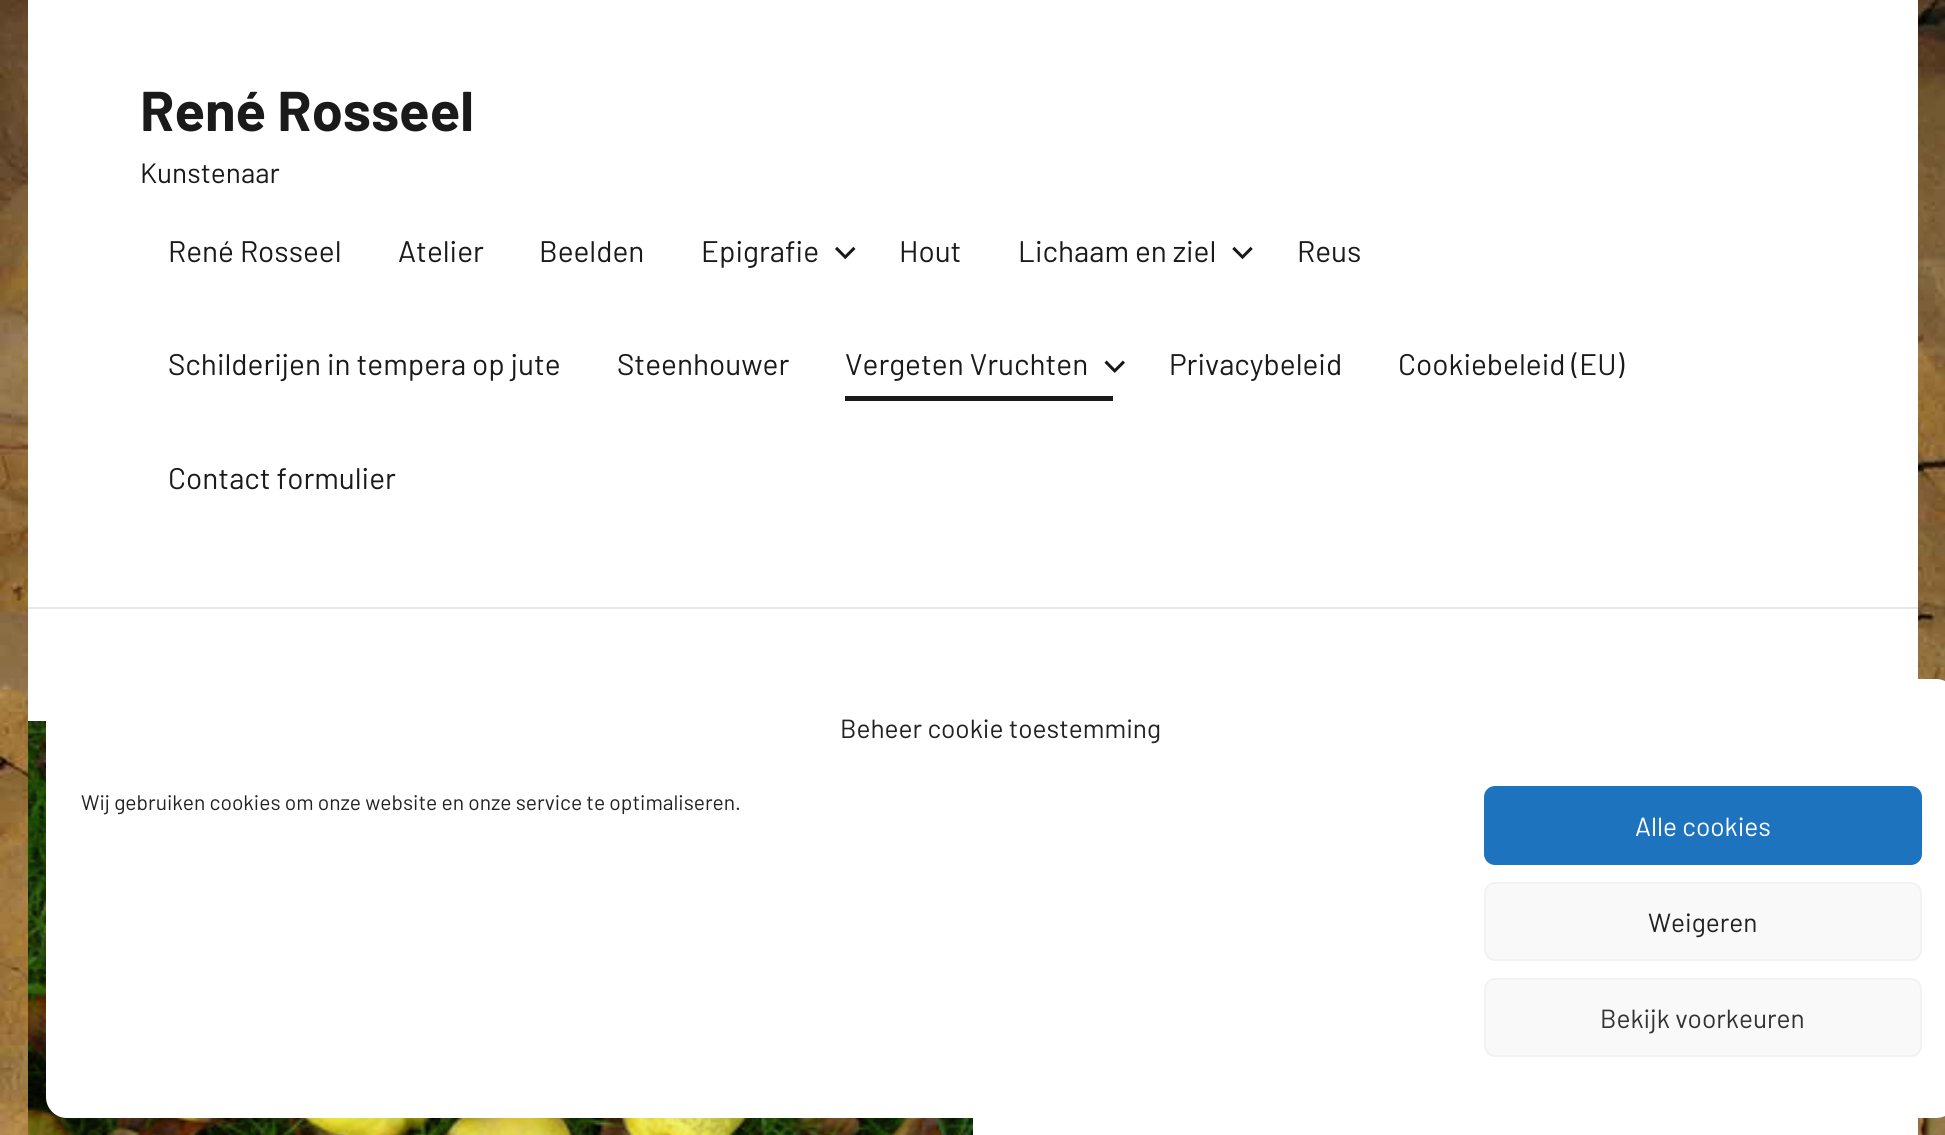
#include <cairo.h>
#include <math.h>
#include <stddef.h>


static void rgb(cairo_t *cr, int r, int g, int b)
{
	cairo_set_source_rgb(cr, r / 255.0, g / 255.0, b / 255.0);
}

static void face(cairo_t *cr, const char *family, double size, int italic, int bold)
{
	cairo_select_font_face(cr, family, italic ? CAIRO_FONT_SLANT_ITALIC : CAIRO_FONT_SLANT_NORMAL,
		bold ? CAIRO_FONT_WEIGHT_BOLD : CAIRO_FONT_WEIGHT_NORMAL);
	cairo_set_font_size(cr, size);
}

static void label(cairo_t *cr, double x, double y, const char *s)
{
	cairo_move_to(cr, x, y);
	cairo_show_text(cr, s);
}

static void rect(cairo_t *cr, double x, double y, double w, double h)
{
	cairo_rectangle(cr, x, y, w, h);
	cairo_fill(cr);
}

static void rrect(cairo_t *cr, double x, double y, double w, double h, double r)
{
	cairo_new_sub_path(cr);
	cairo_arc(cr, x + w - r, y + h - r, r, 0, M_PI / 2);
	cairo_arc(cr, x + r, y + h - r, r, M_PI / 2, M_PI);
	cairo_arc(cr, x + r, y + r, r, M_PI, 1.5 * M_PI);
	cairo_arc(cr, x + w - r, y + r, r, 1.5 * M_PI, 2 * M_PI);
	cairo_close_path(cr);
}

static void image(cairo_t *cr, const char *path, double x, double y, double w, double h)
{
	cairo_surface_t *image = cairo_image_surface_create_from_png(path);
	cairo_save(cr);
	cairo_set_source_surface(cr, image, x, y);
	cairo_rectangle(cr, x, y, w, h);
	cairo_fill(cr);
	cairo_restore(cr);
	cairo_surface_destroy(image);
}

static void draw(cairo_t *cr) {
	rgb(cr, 255, 255, 255);
	cairo_paint(cr);
	image(cr, "image0.png", 0, 0, 1945, 1135);
	rgb(cr, 255, 255, 255);
	rect(cr, 28, 0, 1890, 1135);
	rgb(cr, 230, 230, 230);
	rect(cr, 28, 607, 1890, 2);
	face(cr, "Barlow", 56, 0, 1);
	rgb(cr, 26, 26, 26);
	label(cr, 140, 131, "René Rosseel");
	face(cr, "Barlow", 28, 0, 0);
	label(cr, 140, 183, "Kunstenaar");
	face(cr, "Barlow", 29.75, 0, 0);
	label(cr, 168, 262, "René Rosseel");
	label(cr, 398, 262, "Atelier");
	label(cr, 539, 262, "Beelden");
	label(cr, 701, 262, "Epigrafie");
	image(cr, "image1.png", 835, 246, 21, 14);
	label(cr, 899, 262, "Hout");
	label(cr, 1018, 262, "Lichaam en ziel");
	image(cr, "image2.png", 1232, 246, 21, 14);
	label(cr, 1297, 262, "Reus");
	label(cr, 168, 375, "Schilderijen in tempera op jute");
	label(cr, 617, 375, "Steenhouwer");
	rect(cr, 845, 396, 268, 5);
	label(cr, 845, 375, "Vergeten Vruchten");
	image(cr, "image3.png", 1104, 360, 21, 13);
	label(cr, 1169, 375, "Privacybeleid");
	label(cr, 1398, 375, "Cookiebeleid (EU)");
	label(cr, 168, 489, "Contact formulier");
	image(cr, "image4.png", 28, 721, 945, 414);
	rgb(cr, 255, 255, 255);
	rrect(cr, 46, 679, 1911, 439, 21);
	cairo_fill(cr);
	face(cr, "Barlow", 26.25, 0, 0);
	rgb(cr, 34, 34, 34);
	label(cr, 840, 738, "Beheer cookie toestemming");
	face(cr, "Barlow", 21, 0, 0);
	label(cr, 81, 810, "Wij gebruiken cookies om onze website en onze service te optimaliseren.");
	rgb(cr, 30, 115, 190);
	rrect(cr, 1485, 787, 436, 77, 10);
	cairo_fill_preserve(cr);
	cairo_stroke(cr);
	face(cr, "Barlow", 26.25, 0, 0);
	rgb(cr, 255, 255, 255);
	label(cr, 1635, 836, "Alle cookies");
	rgb(cr, 249, 249, 249);
	rrect(cr, 1485, 883, 436, 77, 10);
	cairo_fill_preserve(cr);
	rgb(cr, 242, 242, 242);
	cairo_stroke(cr);
	rgb(cr, 34, 34, 34);
	label(cr, 1648, 932, "Weigeren");
	rgb(cr, 249, 249, 249);
	rrect(cr, 1485, 979, 436, 77, 10);
	cairo_fill_preserve(cr);
	rgb(cr, 242, 242, 242);
	cairo_stroke(cr);
	rgb(cr, 51, 51, 51);
	label(cr, 1600, 1028, "Bekijk voorkeuren");
}

int main(void) {
	cairo_surface_t *surface = cairo_image_surface_create(CAIRO_FORMAT_RGB24, 1945, 1135);
	cairo_t *cr = cairo_create(surface);
	cairo_font_options_t *options = cairo_font_options_create();
	cairo_font_options_set_hint_metrics(options, CAIRO_HINT_METRICS_OFF);
	cairo_font_options_set_hint_style(options, CAIRO_HINT_STYLE_NONE);
	cairo_set_font_options(cr, options);
	cairo_set_miter_limit(cr, 4);
	draw(cr);
	cairo_surface_write_to_png(surface, "render.png");
	cairo_font_options_destroy(options);
	cairo_destroy(cr);
	cairo_surface_destroy(surface);
	return 0;
}
